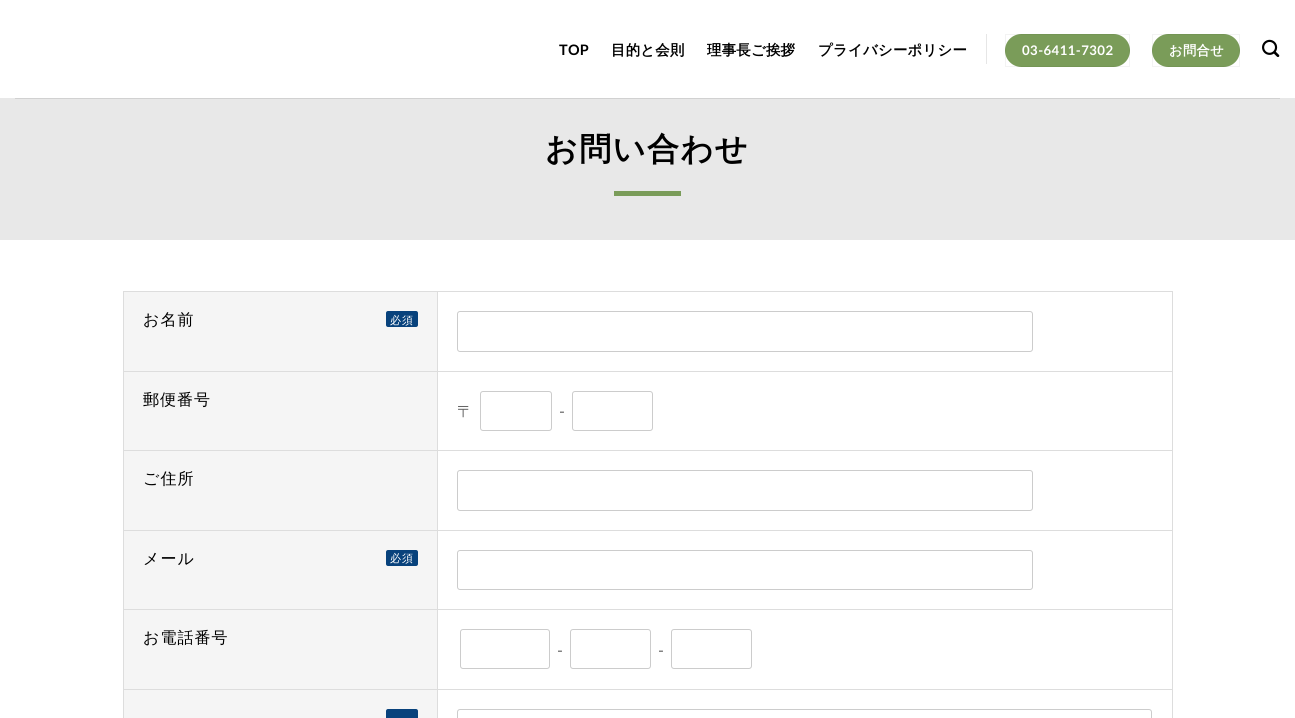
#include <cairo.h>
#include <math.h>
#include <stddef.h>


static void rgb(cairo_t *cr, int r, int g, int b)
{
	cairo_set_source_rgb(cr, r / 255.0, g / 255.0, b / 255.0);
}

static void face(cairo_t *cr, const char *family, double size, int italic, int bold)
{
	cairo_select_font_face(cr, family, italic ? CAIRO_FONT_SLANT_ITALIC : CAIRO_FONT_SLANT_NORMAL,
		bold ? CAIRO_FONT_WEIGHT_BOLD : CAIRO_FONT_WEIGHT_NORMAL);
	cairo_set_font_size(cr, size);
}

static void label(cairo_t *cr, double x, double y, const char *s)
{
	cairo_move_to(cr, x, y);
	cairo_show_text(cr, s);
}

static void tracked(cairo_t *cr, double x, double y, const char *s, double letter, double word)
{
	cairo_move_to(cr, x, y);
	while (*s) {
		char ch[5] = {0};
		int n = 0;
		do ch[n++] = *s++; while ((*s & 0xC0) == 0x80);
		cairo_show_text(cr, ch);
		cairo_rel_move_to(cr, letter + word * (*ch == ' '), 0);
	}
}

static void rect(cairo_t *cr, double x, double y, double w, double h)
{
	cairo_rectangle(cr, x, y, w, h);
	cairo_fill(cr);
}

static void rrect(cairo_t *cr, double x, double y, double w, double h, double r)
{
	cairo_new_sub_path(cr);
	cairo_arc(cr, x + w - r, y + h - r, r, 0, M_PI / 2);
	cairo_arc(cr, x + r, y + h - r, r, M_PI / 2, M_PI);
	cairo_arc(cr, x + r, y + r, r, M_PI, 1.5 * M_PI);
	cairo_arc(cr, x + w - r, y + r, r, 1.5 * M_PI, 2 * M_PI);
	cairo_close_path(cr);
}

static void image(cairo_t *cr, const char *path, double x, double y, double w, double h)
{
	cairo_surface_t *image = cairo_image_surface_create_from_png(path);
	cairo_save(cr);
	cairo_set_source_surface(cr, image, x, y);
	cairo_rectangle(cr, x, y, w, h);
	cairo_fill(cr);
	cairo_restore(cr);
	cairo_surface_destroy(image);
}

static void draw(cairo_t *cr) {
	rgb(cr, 255, 255, 255);
	cairo_paint(cr);
	face(cr, "Lato", 14.4, 0, 1);
	rgb(cr, 0, 0, 0);
	tracked(cr, 559, 55, "TOP", 0.25, 0);
	face(cr, "WenQuanYi Zen Hei", 14.4, 0, 1);
	tracked(cr, 611, 55, "目的と会則", 0.25, 0);
	tracked(cr, 707, 55, "理事長ご挨拶", 0.25, 0);
	tracked(cr, 818, 55, "プライバシーポリシー", 0.25, 0);
	rgb(cr, 230, 230, 230);
	rect(cr, 986, 34, 1, 30);
	rgb(cr, 122, 156, 89);
	rrect(cr, 1005, 34, 125, 33, 16.5);
	cairo_fill(cr);
	cairo_rectangle(cr, 1005.5, 34.5, 124, 32);
	cairo_set_source_rgba(cr, 0, 0, 0, 0.05);
	cairo_set_line_width(cr, 1);
	cairo_stroke(cr);
	face(cr, "Lato", 13.25, 0, 1);
	rgb(cr, 255, 255, 255);
	tracked(cr, 1022, 55, "03-6411-7302", 0.4, 0);
	rgb(cr, 122, 156, 89);
	rrect(cr, 1152, 34, 88, 33, 16.5);
	cairo_fill(cr);
	cairo_rectangle(cr, 1152.5, 34.5, 87, 32);
	cairo_set_source_rgba(cr, 0, 0, 0, 0.05);
	cairo_stroke(cr);
	face(cr, "WenQuanYi Zen Hei", 13.25, 0, 1);
	rgb(cr, 255, 255, 255);
	tracked(cr, 1169, 55, "お問合せ", 0.4, 0);
	image(cr, "image0.png", 1262, 39, 18, 18);
	rgb(cr, 232, 232, 232);
	rect(cr, 0, 98, 1295, 142);
	rgb(cr, 209, 209, 209);
	rect(cr, 15, 98, 1265, 1);
	face(cr, "WenQuanYi Zen Hei", 32, 0, 1);
	rgb(cr, 0, 0, 0);
	tracked(cr, 545, 160, "お問い合わせ", 1.5, 0);
	rgb(cr, 122, 156, 89);
	rect(cr, 614, 191, 67, 5);
	rgb(cr, 221, 221, 221);
	rect(cr, 123, 291, 1050, 1);
	rect(cr, 1172, 291, 1, 427);
	rect(cr, 123, 291, 1, 427);
	rgb(cr, 245, 245, 245);
	rect(cr, 124, 292, 313, 79);
	face(cr, "WenQuanYi Zen Hei Medium", 16, 0, 0);
	rgb(cr, 0, 0, 0);
	tracked(cr, 143, 325, "お名前", 1, 0);
	rgb(cr, 8, 66, 124);
	rrect(cr, 386, 311, 32, 16, 2);
	cairo_fill(cr);
	face(cr, "WenQuanYi Zen Hei Medium", 11, 0, 0);
	rgb(cr, 255, 255, 255);
	tracked(cr, 390, 324, "必須", 1, 0);
	rgb(cr, 221, 221, 221);
	rect(cr, 437, 371, 736, 1);
	rect(cr, 437, 450, 736, 1);
	rect(cr, 437, 530, 736, 1);
	rect(cr, 437, 609, 736, 1);
	rect(cr, 437, 689, 736, 1);
	rect(cr, 437, 689, 1, 29);
	rect(cr, 123, 689, 315, 1);
	rect(cr, 437, 609, 1, 81);
	rect(cr, 123, 609, 315, 1);
	rect(cr, 437, 530, 1, 80);
	rect(cr, 123, 530, 315, 1);
	rect(cr, 437, 450, 1, 81);
	rect(cr, 123, 450, 315, 1);
	rect(cr, 437, 371, 1, 80);
	rect(cr, 123, 371, 315, 1);
	rect(cr, 437, 291, 1, 81);
	rrect(cr, 457.5, 311.5, 575, 40, 2.5);
	rgb(cr, 204, 204, 204);
	cairo_stroke(cr);
	rgb(cr, 245, 245, 245);
	rect(cr, 124, 372, 313, 78);
	face(cr, "WenQuanYi Zen Hei Medium", 16, 0, 0);
	rgb(cr, 0, 0, 0);
	tracked(cr, 143, 405, "郵便番号", 1, 0);
	rgb(cr, 102, 102, 102);
	label(cr, 457, 417, "〒");
	rrect(cr, 480.5, 391.5, 71, 39, 2.5);
	rgb(cr, 204, 204, 204);
	cairo_stroke(cr);
	face(cr, "Lato", 16, 0, 0);
	rgb(cr, 102, 102, 102);
	label(cr, 559, 417, "-");
	rrect(cr, 572.5, 391.5, 80, 39, 2.5);
	rgb(cr, 204, 204, 204);
	cairo_stroke(cr);
	rgb(cr, 245, 245, 245);
	rect(cr, 124, 451, 313, 79);
	face(cr, "WenQuanYi Zen Hei Medium", 16, 0, 0);
	rgb(cr, 0, 0, 0);
	tracked(cr, 143, 484, "ご住所", 1, 0);
	rrect(cr, 457.5, 470.5, 575, 40, 2.5);
	rgb(cr, 204, 204, 204);
	cairo_stroke(cr);
	rgb(cr, 245, 245, 245);
	rect(cr, 124, 531, 313, 78);
	rgb(cr, 0, 0, 0);
	tracked(cr, 143, 564, "メール", 1, 0);
	rgb(cr, 8, 66, 124);
	rrect(cr, 386, 550, 32, 16, 2);
	cairo_fill(cr);
	face(cr, "WenQuanYi Zen Hei Medium", 11, 0, 0);
	rgb(cr, 255, 255, 255);
	tracked(cr, 390, 562, "必須", 1, 0);
	rrect(cr, 457.5, 550.5, 575, 39, 2.5);
	rgb(cr, 204, 204, 204);
	cairo_stroke(cr);
	rgb(cr, 245, 245, 245);
	rect(cr, 124, 610, 313, 79);
	face(cr, "WenQuanYi Zen Hei Medium", 16, 0, 0);
	rgb(cr, 0, 0, 0);
	tracked(cr, 143, 643, "お電話番号", 1, 0);
	rrect(cr, 460.5, 629.5, 89, 39, 2.5);
	rgb(cr, 204, 204, 204);
	cairo_stroke(cr);
	face(cr, "Lato", 16, 0, 0);
	rgb(cr, 102, 102, 102);
	label(cr, 557, 656, "-");
	rrect(cr, 570.5, 629.5, 80, 39, 2.5);
	rgb(cr, 204, 204, 204);
	cairo_stroke(cr);
	rgb(cr, 102, 102, 102);
	label(cr, 658, 656, "-");
	rrect(cr, 671.5, 629.5, 80, 39, 2.5);
	rgb(cr, 204, 204, 204);
	cairo_stroke(cr);
	rgb(cr, 245, 245, 245);
	rect(cr, 124, 690, 313, 28);
	rgb(cr, 8, 66, 124);
	rrect(cr, 386, 709, 32, 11, 2);
	cairo_fill(cr);
	rrect(cr, 457.5, 709.5, 694, 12, 2.5);
	rgb(cr, 204, 204, 204);
	cairo_stroke(cr);
}

int main(void) {
	cairo_surface_t *surface = cairo_image_surface_create(CAIRO_FORMAT_RGB24, 1295, 718);
	cairo_t *cr = cairo_create(surface);
	cairo_font_options_t *options = cairo_font_options_create();
	cairo_font_options_set_hint_metrics(options, CAIRO_HINT_METRICS_OFF);
	cairo_font_options_set_hint_style(options, CAIRO_HINT_STYLE_NONE);
	cairo_set_font_options(cr, options);
	cairo_set_miter_limit(cr, 4);
	draw(cr);
	cairo_surface_write_to_png(surface, "render.png");
	cairo_font_options_destroy(options);
	cairo_destroy(cr);
	cairo_surface_destroy(surface);
	return 0;
}
